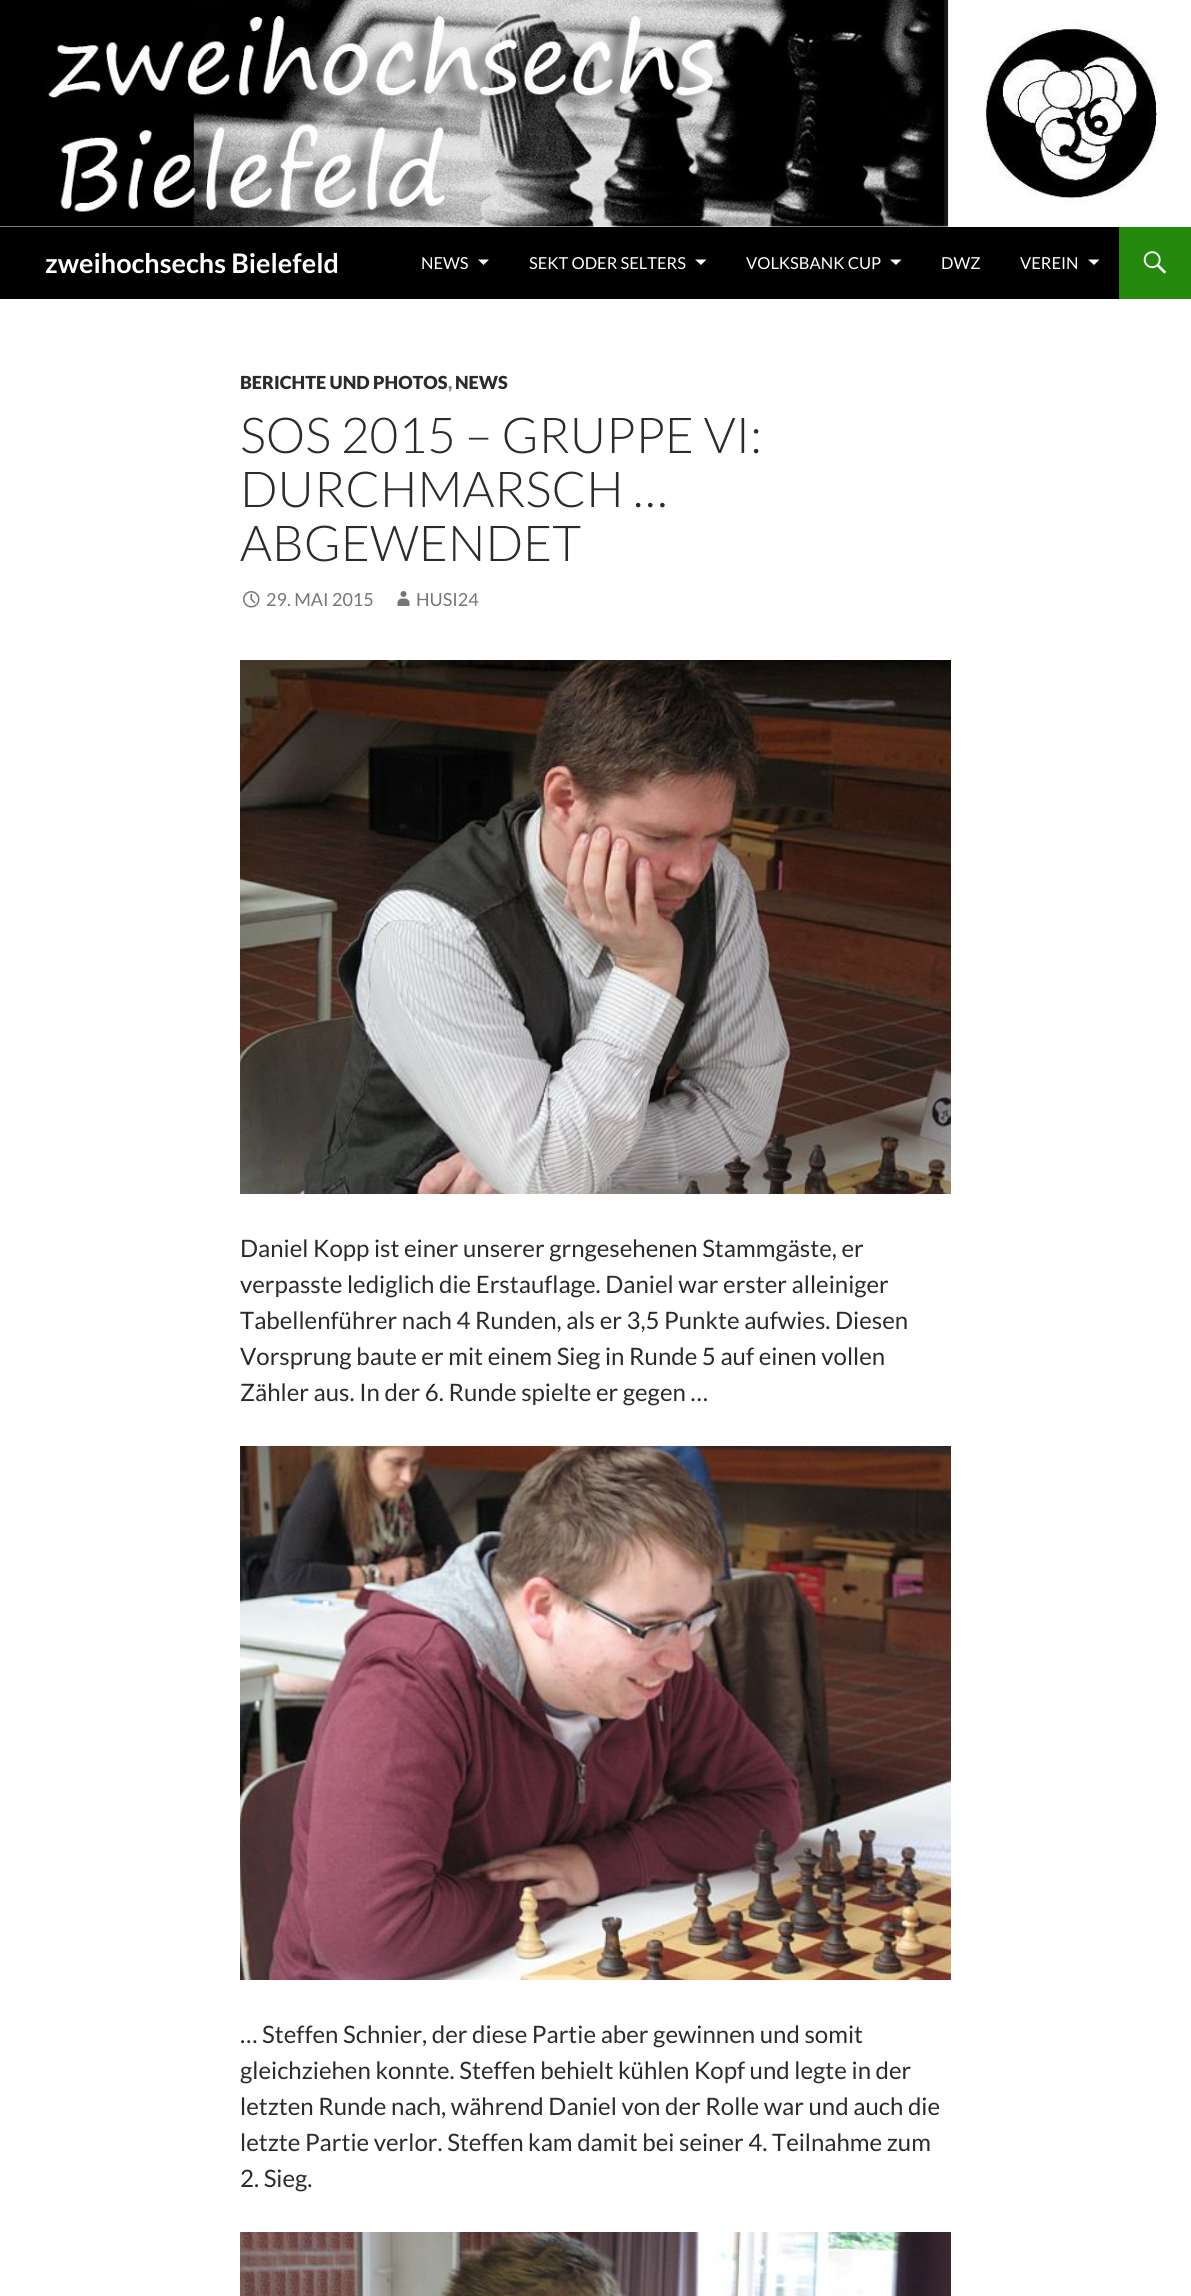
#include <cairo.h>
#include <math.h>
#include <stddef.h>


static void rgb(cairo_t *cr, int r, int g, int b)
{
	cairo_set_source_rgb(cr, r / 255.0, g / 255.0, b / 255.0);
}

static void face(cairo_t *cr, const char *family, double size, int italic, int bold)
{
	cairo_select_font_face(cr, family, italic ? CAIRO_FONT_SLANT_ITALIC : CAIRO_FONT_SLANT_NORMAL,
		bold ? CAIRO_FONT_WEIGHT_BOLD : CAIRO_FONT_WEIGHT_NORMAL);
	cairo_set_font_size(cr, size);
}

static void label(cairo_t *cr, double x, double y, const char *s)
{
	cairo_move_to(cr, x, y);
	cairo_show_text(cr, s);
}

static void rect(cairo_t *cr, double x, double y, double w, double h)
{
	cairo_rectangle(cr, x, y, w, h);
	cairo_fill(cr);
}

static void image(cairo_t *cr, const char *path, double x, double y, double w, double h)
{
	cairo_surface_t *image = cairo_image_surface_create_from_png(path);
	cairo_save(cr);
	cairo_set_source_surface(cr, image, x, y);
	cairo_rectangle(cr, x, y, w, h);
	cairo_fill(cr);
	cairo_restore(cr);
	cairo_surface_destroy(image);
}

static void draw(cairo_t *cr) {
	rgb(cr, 255, 255, 255);
	cairo_paint(cr);
	image(cr, "image0.png", 0, 0, 1157, 227);
	rgb(cr, 0, 0, 0);
	rect(cr, 0, 227, 1119, 72);
	face(cr, "Lato", 27, 0, 1);
	rgb(cr, 255, 255, 255);
	label(cr, 45, 273, "zweihochsechs Bielefeld");
	face(cr, "Lato", 16.5, 0, 0);
	label(cr, 421, 269, "NEWS");
	cairo_new_path(cr);
	cairo_move_to(cr, 478, 259.5);
	cairo_line_to(cr, 483.5, 265);
	cairo_line_to(cr, 489, 259.5);
	cairo_close_path(cr);
	cairo_fill(cr);
	label(cr, 529, 269, "SEKT ODER SELTERS");
	cairo_new_path(cr);
	cairo_move_to(cr, 695, 259.5);
	cairo_line_to(cr, 701, 265);
	cairo_line_to(cr, 706.5, 259.5);
	cairo_close_path(cr);
	cairo_fill(cr);
	label(cr, 746, 269, "VOLKSBANK CUP");
	cairo_new_path(cr);
	cairo_move_to(cr, 890, 259.5);
	cairo_line_to(cr, 896, 265);
	cairo_line_to(cr, 901.5, 259.5);
	cairo_close_path(cr);
	cairo_fill(cr);
	label(cr, 941, 269, "DWZ");
	label(cr, 1020, 269, "VEREIN");
	cairo_new_path(cr);
	cairo_move_to(cr, 1088, 259.5);
	cairo_line_to(cr, 1094, 265);
	cairo_line_to(cr, 1099.5, 259.5);
	cairo_close_path(cr);
	cairo_fill(cr);
	rgb(cr, 36, 137, 13);
	rect(cr, 1119, 227, 72, 72);
	image(cr, "image1.png", 1143, 251, 24, 23);
	face(cr, "Lato Black", 18, 0, 0);
	rgb(cr, 43, 43, 43);
	label(cr, 240, 389, "BERICHTE UND PHOTOS");
	rgb(cr, 118, 118, 118);
	label(cr, 448, 389, ",");
	rgb(cr, 43, 43, 43);
	label(cr, 455, 389, "NEWS");
	face(cr, "Lato Light", 49.5, 0, 0);
	label(cr, 240, 453, "SOS 2015 – GRUPPE VI:");
	label(cr, 240, 507, "DURCHMARSCH …");
	label(cr, 240, 561, "ABGEWENDET");
	image(cr, "image2.png", 243, 591, 17, 17);
	face(cr, "Lato", 18, 0, 0);
	rgb(cr, 118, 118, 118);
	label(cr, 266, 606, "29. MAI 2015");
	image(cr, "image3.png", 397, 591, 13, 15);
	label(cr, 416, 606, "HUSI24");
	image(cr, "image4.png", 240, 660, 711, 534);
	face(cr, "Lato", 24, 0, 0);
	rgb(cr, 43, 43, 43);
	label(cr, 240, 1257, "Daniel Kopp ist einer unserer grngesehenen Stammgäste, er");
	label(cr, 240, 1293, "verpasste lediglich die Erstauflage. Daniel war erster alleiniger");
	label(cr, 240, 1329, "Tabellenführer nach 4 Runden, als er 3,5 Punkte aufwies. Diesen");
	label(cr, 240, 1365, "Vorsprung baute er mit einem Sieg in Runde 5 auf einen vollen");
	label(cr, 240, 1401, "Zähler aus. In der 6. Runde spielte er gegen …");
	image(cr, "image5.png", 240, 1446, 711, 534);
	label(cr, 240, 2043, "… Steffen Schnier, der diese Partie aber gewinnen und somit");
	label(cr, 240, 2079, "gleichziehen konnte. Steffen behielt kühlen Kopf und legte in der");
	label(cr, 240, 2115, "letzten Runde nach, während Daniel von der Rolle war und auch die");
	label(cr, 240, 2151, "letzte Partie verlor. Steffen kam damit bei seiner 4. Teilnahme zum");
	label(cr, 240, 2187, "2. Sieg.");
	image(cr, "image6.png", 240, 2232, 711, 64);
}

int main(void) {
	cairo_surface_t *surface = cairo_image_surface_create(CAIRO_FORMAT_RGB24, 1191, 2296);
	cairo_t *cr = cairo_create(surface);
	cairo_font_options_t *options = cairo_font_options_create();
	cairo_font_options_set_hint_metrics(options, CAIRO_HINT_METRICS_OFF);
	cairo_font_options_set_hint_style(options, CAIRO_HINT_STYLE_NONE);
	cairo_set_font_options(cr, options);
	cairo_set_miter_limit(cr, 4);
	draw(cr);
	cairo_surface_write_to_png(surface, "render.png");
	cairo_font_options_destroy(options);
	cairo_destroy(cr);
	cairo_surface_destroy(surface);
	return 0;
}
